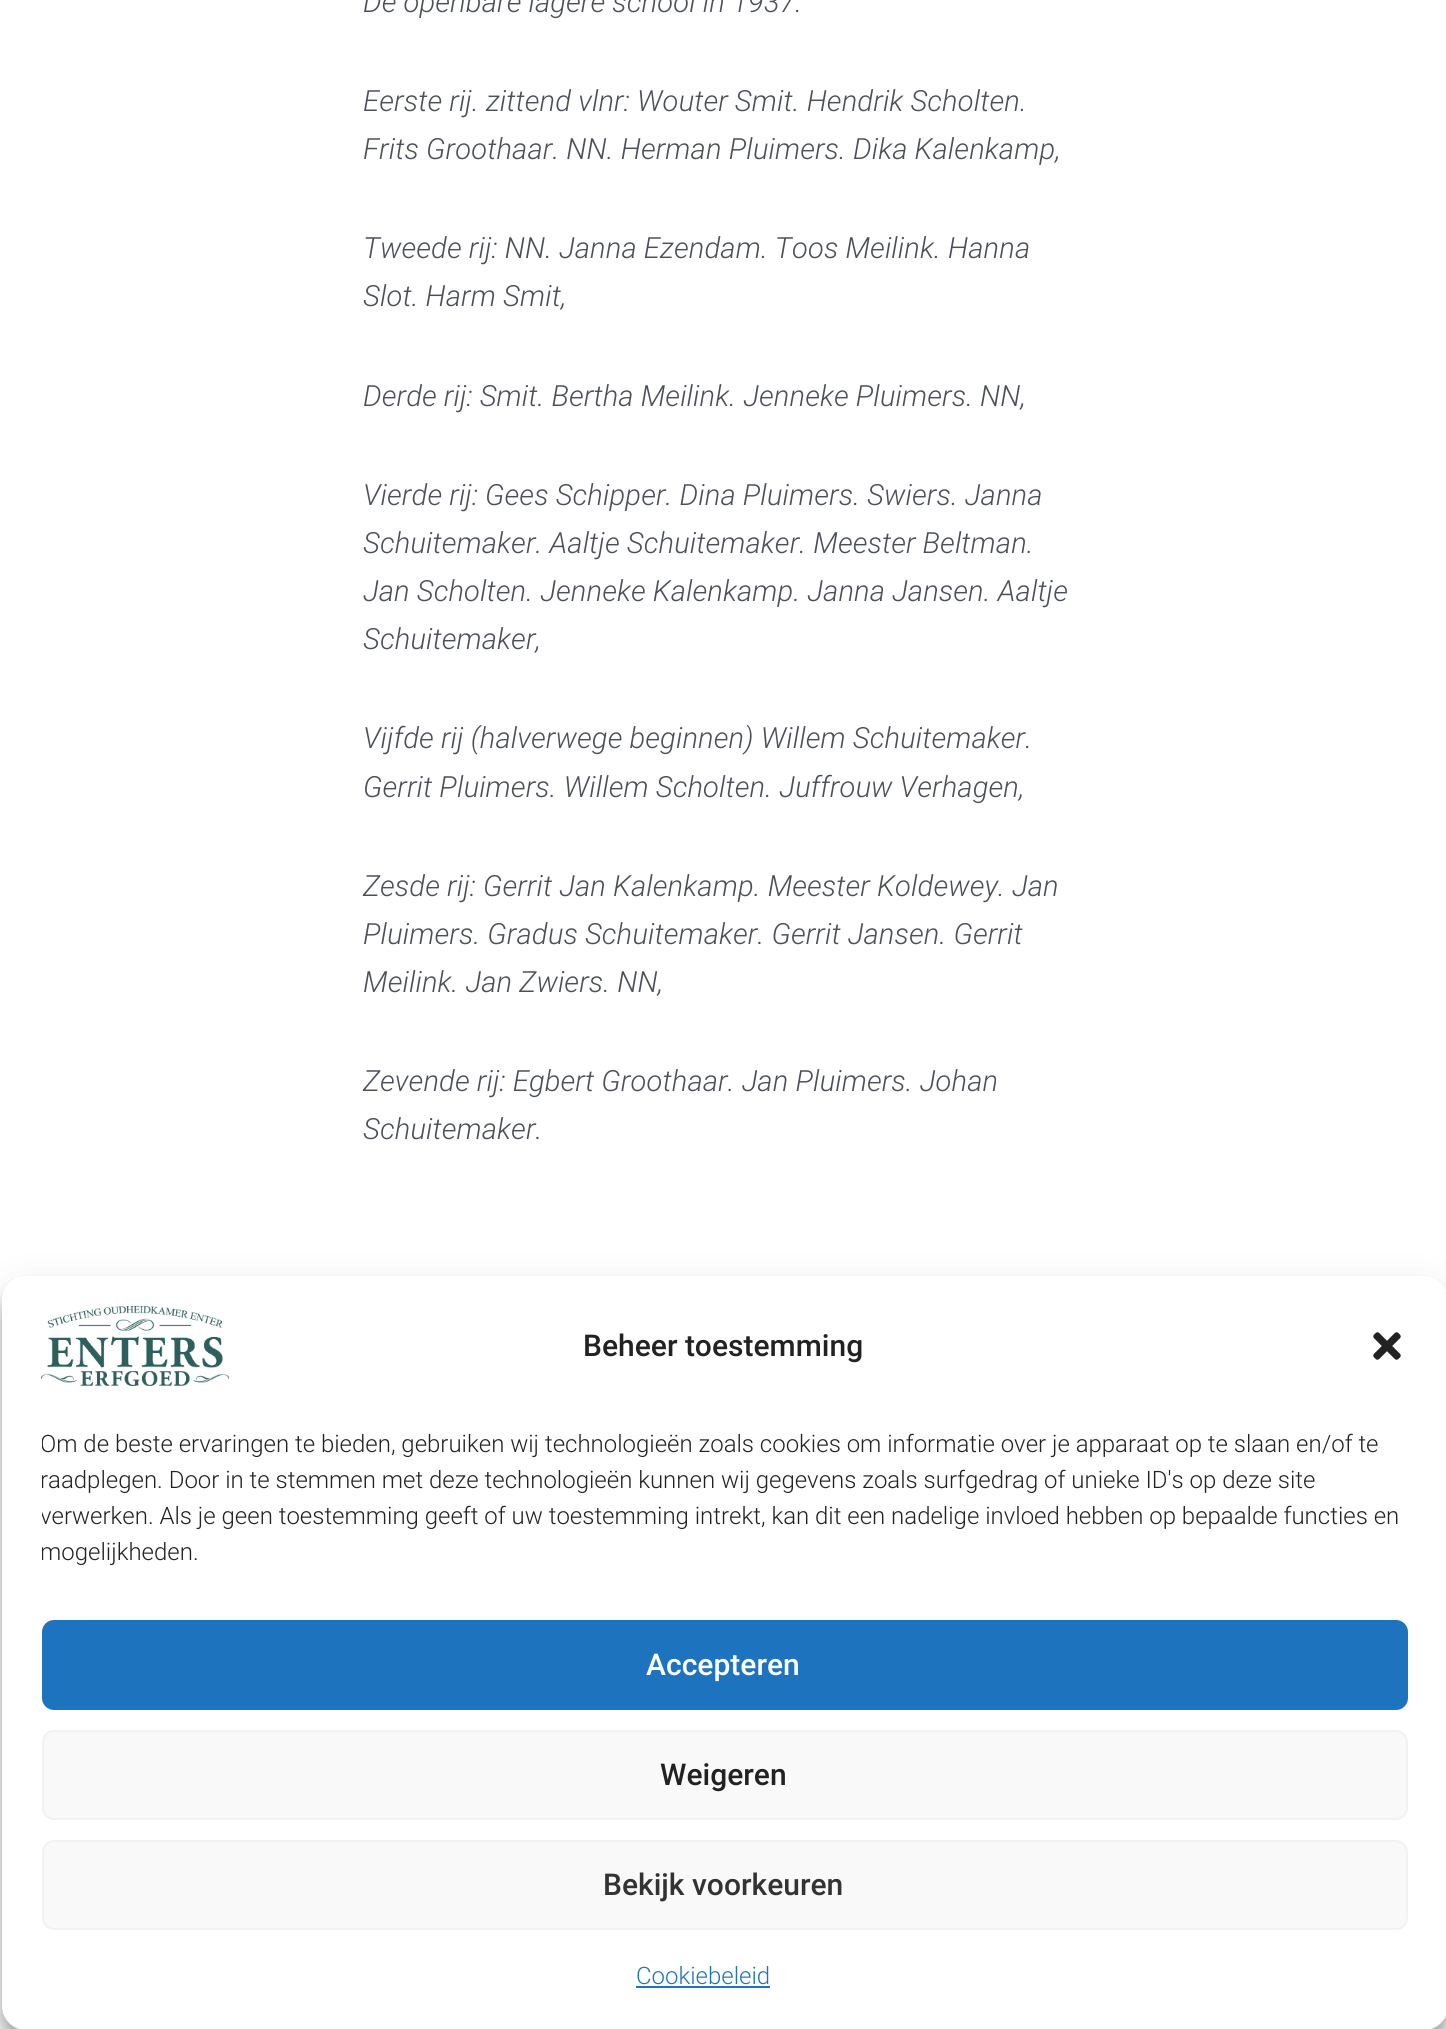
#include <cairo.h>
#include <math.h>
#include <stddef.h>


static void rgb(cairo_t *cr, int r, int g, int b)
{
	cairo_set_source_rgb(cr, r / 255.0, g / 255.0, b / 255.0);
}

static void face(cairo_t *cr, const char *family, double size, int italic, int bold)
{
	cairo_select_font_face(cr, family, italic ? CAIRO_FONT_SLANT_ITALIC : CAIRO_FONT_SLANT_NORMAL,
		bold ? CAIRO_FONT_WEIGHT_BOLD : CAIRO_FONT_WEIGHT_NORMAL);
	cairo_set_font_size(cr, size);
}

static void label(cairo_t *cr, double x, double y, const char *s)
{
	cairo_move_to(cr, x, y);
	cairo_show_text(cr, s);
}

static void rect(cairo_t *cr, double x, double y, double w, double h)
{
	cairo_rectangle(cr, x, y, w, h);
	cairo_fill(cr);
}

static void rrect(cairo_t *cr, double x, double y, double w, double h, double r)
{
	cairo_new_sub_path(cr);
	cairo_arc(cr, x + w - r, y + h - r, r, 0, M_PI / 2);
	cairo_arc(cr, x + r, y + h - r, r, M_PI / 2, M_PI);
	cairo_arc(cr, x + r, y + r, r, M_PI, 1.5 * M_PI);
	cairo_arc(cr, x + w - r, y + r, r, 1.5 * M_PI, 2 * M_PI);
	cairo_close_path(cr);
}

static void soft_shadow(cairo_t *cr, double x, double y, double w, double h, double r, double blur, double alpha)
{
	cairo_push_group_with_content(cr, CAIRO_CONTENT_ALPHA);
	cairo_set_operator(cr, CAIRO_OPERATOR_SOURCE);
	for (int i = 15; i >= -15 && fmin(w, h) + blur * i / 3 > 0; i -= 2) {
		double e = blur * i / 6;
		cairo_set_source_rgba(cr, 0, 0, 0, alpha * erfc((i - 1) / 8.5) / 2);
		rrect(cr, x - e, y - e, w + 2 * e, h + 2 * e, fmax(0, fmin(r + e + blur * .6, fmin(w, h) / 2 + e)));
		cairo_fill(cr);
	}
	cairo_pattern_t *soft = cairo_pop_group(cr);
	cairo_mask(cr, soft);
	cairo_pattern_destroy(soft);
}

static void image(cairo_t *cr, const char *path, double x, double y, double w, double h)
{
	cairo_surface_t *image = cairo_image_surface_create_from_png(path);
	cairo_save(cr);
	cairo_set_source_surface(cr, image, x, y);
	cairo_rectangle(cr, x, y, w, h);
	cairo_fill(cr);
	cairo_restore(cr);
	cairo_surface_destroy(image);
}

static void draw(cairo_t *cr) {
	rgb(cr, 255, 255, 255);
	cairo_paint(cr);
	face(cr, "Roboto Light", 29.2, 1, 0);
	rgb(cr, 75, 79, 88);
	label(cr, 363, 12, "De openbare lagere school in 1937.");
	label(cr, 363, 111, "Eerste rij. zittend vlnr: Wouter Smit. Hendrik Scholten.");
	label(cr, 363, 159, "Frits Groothaar. NN. Herman Pluimers. Dika Kalenkamp,");
	label(cr, 363, 258, "Tweede rij: NN. Janna Ezendam. Toos Meilink. Hanna");
	label(cr, 363, 306, "Slot. Harm Smit,");
	label(cr, 363, 406, "Derde rij: Smit. Bertha Meilink. Jenneke Pluimers. NN,");
	label(cr, 363, 505, "Vierde rij: Gees Schipper. Dina Pluimers. Swiers. Janna");
	label(cr, 363, 553, "Schuitemaker. Aaltje Schuitemaker. Meester Beltman.");
	label(cr, 363, 601, "Jan Scholten. Jenneke Kalenkamp. Janna Jansen. Aaltje");
	label(cr, 363, 649, "Schuitemaker,");
	label(cr, 363, 748, "Vijfde rij (halverwege beginnen) Willem Schuitemaker.");
	label(cr, 363, 797, "Gerrit Pluimers. Willem Scholten. Juffrouw Verhagen,");
	label(cr, 363, 896, "Zesde rij: Gerrit Jan Kalenkamp. Meester Koldewey. Jan");
	label(cr, 363, 944, "Pluimers. Gradus Schuitemaker. Gerrit Jansen. Gerrit");
	label(cr, 363, 992, "Meilink. Jan Zwiers. NN,");
	label(cr, 363, 1091, "Zevende rij: Egbert Groothaar. Jan Pluimers. Johan");
	label(cr, 363, 1139, "Schuitemaker.");
	rgb(cr, 0, 0, 0);
	soft_shadow(cr, 2, 1288, 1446, 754, 24, 6, 0.23);
	soft_shadow(cr, 2, 1296, 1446, 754, 24, 20, 0.19);
	rgb(cr, 255, 255, 255);
	rrect(cr, 2, 1276, 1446, 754, 24);
	cairo_fill(cr);
	image(cr, "image0.png", 41, 1306, 188, 80);
	face(cr, "Roboto Medium", 30, 0, 0);
	rgb(cr, 34, 34, 34);
	label(cr, 583, 1356, "Beheer toestemming");
	image(cr, "image1.png", 1373, 1332, 28, 28);
	cairo_save(cr);
	cairo_rectangle(cr, 42, 1426, 1366, 154);
	cairo_clip(cr);
	face(cr, "Roboto Light", 24, 0, 0);
	label(cr, 40, 1452, "Om de beste ervaringen te bieden, gebruiken wij technologieën zoals cookies om informatie over je apparaat op te slaan en/of te");
	label(cr, 40, 1488, "raadplegen. Door in te stemmen met deze technologieën kunnen wij gegevens zoals surfgedrag of unieke ID's op deze site");
	label(cr, 40, 1524, "verwerken. Als je geen toestemming geeft of uw toestemming intrekt, kan dit een nadelige invloed hebben op bepaalde functies en");
	label(cr, 40, 1560, "mogelijkheden.");
	cairo_restore(cr);
	rgb(cr, 30, 115, 190);
	rrect(cr, 43, 1621, 1364, 88, 11);
	cairo_fill_preserve(cr);
	cairo_stroke(cr);
	rgb(cr, 255, 255, 255);
	label(cr, 646, 1675, "Accepteren");
	rgb(cr, 249, 249, 249);
	rrect(cr, 43, 1731, 1364, 88, 11);
	cairo_fill_preserve(cr);
	rgb(cr, 242, 242, 242);
	cairo_stroke(cr);
	rgb(cr, 34, 34, 34);
	label(cr, 660, 1785, "Weigeren");
	rgb(cr, 249, 249, 249);
	rrect(cr, 43, 1841, 1364, 88, 11);
	cairo_fill_preserve(cr);
	rgb(cr, 242, 242, 242);
	cairo_stroke(cr);
	rgb(cr, 51, 51, 51);
	label(cr, 603, 1895, "Bekijk voorkeuren");
	face(cr, "Roboto Light", 24, 0, 0);
	rgb(cr, 30, 115, 190);
	label(cr, 636, 1984, "Cookiebeleid");
	rect(cr, 636, 1986, 134, 2);
}

int main(void) {
	cairo_surface_t *surface = cairo_image_surface_create(CAIRO_FORMAT_RGB24, 1446, 2029);
	cairo_t *cr = cairo_create(surface);
	cairo_font_options_t *options = cairo_font_options_create();
	cairo_font_options_set_hint_metrics(options, CAIRO_HINT_METRICS_OFF);
	cairo_font_options_set_hint_style(options, CAIRO_HINT_STYLE_NONE);
	cairo_set_font_options(cr, options);
	cairo_set_miter_limit(cr, 4);
	draw(cr);
	cairo_surface_write_to_png(surface, "render.png");
	cairo_font_options_destroy(options);
	cairo_destroy(cr);
	cairo_surface_destroy(surface);
	return 0;
}
